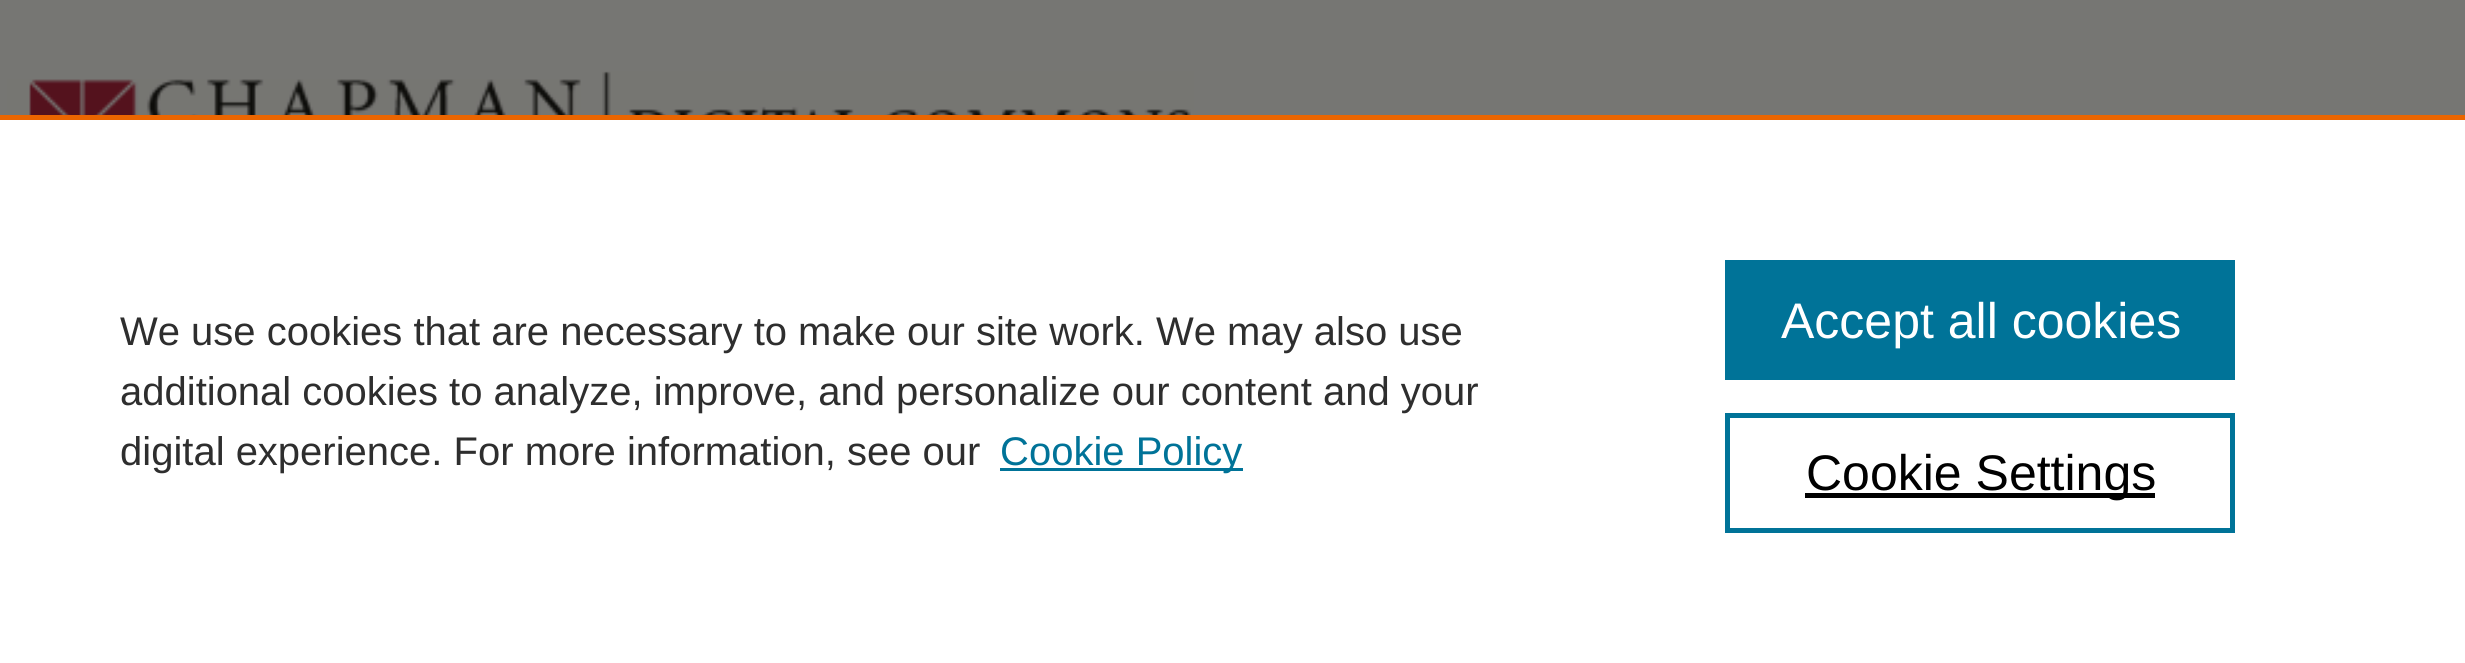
#include <cairo.h>
#include <math.h>
#include <stddef.h>


static void rgb(cairo_t *cr, int r, int g, int b)
{
	cairo_set_source_rgb(cr, r / 255.0, g / 255.0, b / 255.0);
}

static void face(cairo_t *cr, const char *family, double size, int italic, int bold)
{
	cairo_select_font_face(cr, family, italic ? CAIRO_FONT_SLANT_ITALIC : CAIRO_FONT_SLANT_NORMAL,
		bold ? CAIRO_FONT_WEIGHT_BOLD : CAIRO_FONT_WEIGHT_NORMAL);
	cairo_set_font_size(cr, size);
}

static void label(cairo_t *cr, double x, double y, const char *s)
{
	cairo_move_to(cr, x, y);
	cairo_show_text(cr, s);
}

static void rect(cairo_t *cr, double x, double y, double w, double h)
{
	cairo_rectangle(cr, x, y, w, h);
	cairo_fill(cr);
}

static void image(cairo_t *cr, const char *path, double x, double y, double w, double h)
{
	cairo_surface_t *image = cairo_image_surface_create_from_png(path);
	cairo_save(cr);
	cairo_set_source_surface(cr, image, x, y);
	cairo_rectangle(cr, x, y, w, h);
	cairo_fill(cr);
	cairo_restore(cr);
	cairo_surface_destroy(image);
}

static void draw(cairo_t *cr) {
	rgb(cr, 118, 118, 115);
	cairo_paint(cr);
	image(cr, "image0.png", 7, 79, 574, 36);
	image(cr, "image1.png", 602, 71, 592, 44);
	rgb(cr, 255, 255, 255);
	rect(cr, 0, 120, 2465, 543);
	rgb(cr, 235, 101, 0);
	rect(cr, 0, 115, 2465, 5);
	face(cr, "Liberation Sans", 40, 0, 0);
	rgb(cr, 46, 46, 46);
	label(cr, 120, 345, "We use cookies that are necessary to make our site work. We may also use");
	label(cr, 120, 405, "additional cookies to analyze, improve, and personalize our content and your");
	label(cr, 120, 465, "digital experience. For more information, see our");
	rgb(cr, 0, 115, 152);
	rect(cr, 1000, 468, 243, 3);
	label(cr, 1000, 465, "Cookie Policy");
	rect(cr, 1725, 260, 510, 120);
	face(cr, "Liberation Sans", 50, 0, 0);
	rgb(cr, 255, 255, 255);
	label(cr, 1781, 338, "Accept all cookies");
	cairo_rectangle(cr, 1727.5, 415.5, 505, 115);
	rgb(cr, 0, 115, 152);
	cairo_set_line_width(cr, 5);
	cairo_stroke(cr);
	rgb(cr, 0, 0, 0);
	rect(cr, 1805, 493, 350, 5);
	label(cr, 1806, 490, "Cookie Settings");
}

int main(void) {
	cairo_surface_t *surface = cairo_image_surface_create(CAIRO_FORMAT_RGB24, 2465, 663);
	cairo_t *cr = cairo_create(surface);
	cairo_font_options_t *options = cairo_font_options_create();
	cairo_font_options_set_hint_metrics(options, CAIRO_HINT_METRICS_OFF);
	cairo_font_options_set_hint_style(options, CAIRO_HINT_STYLE_NONE);
	cairo_set_font_options(cr, options);
	cairo_set_miter_limit(cr, 4);
	draw(cr);
	cairo_surface_write_to_png(surface, "render.png");
	cairo_font_options_destroy(options);
	cairo_destroy(cr);
	cairo_surface_destroy(surface);
	return 0;
}
